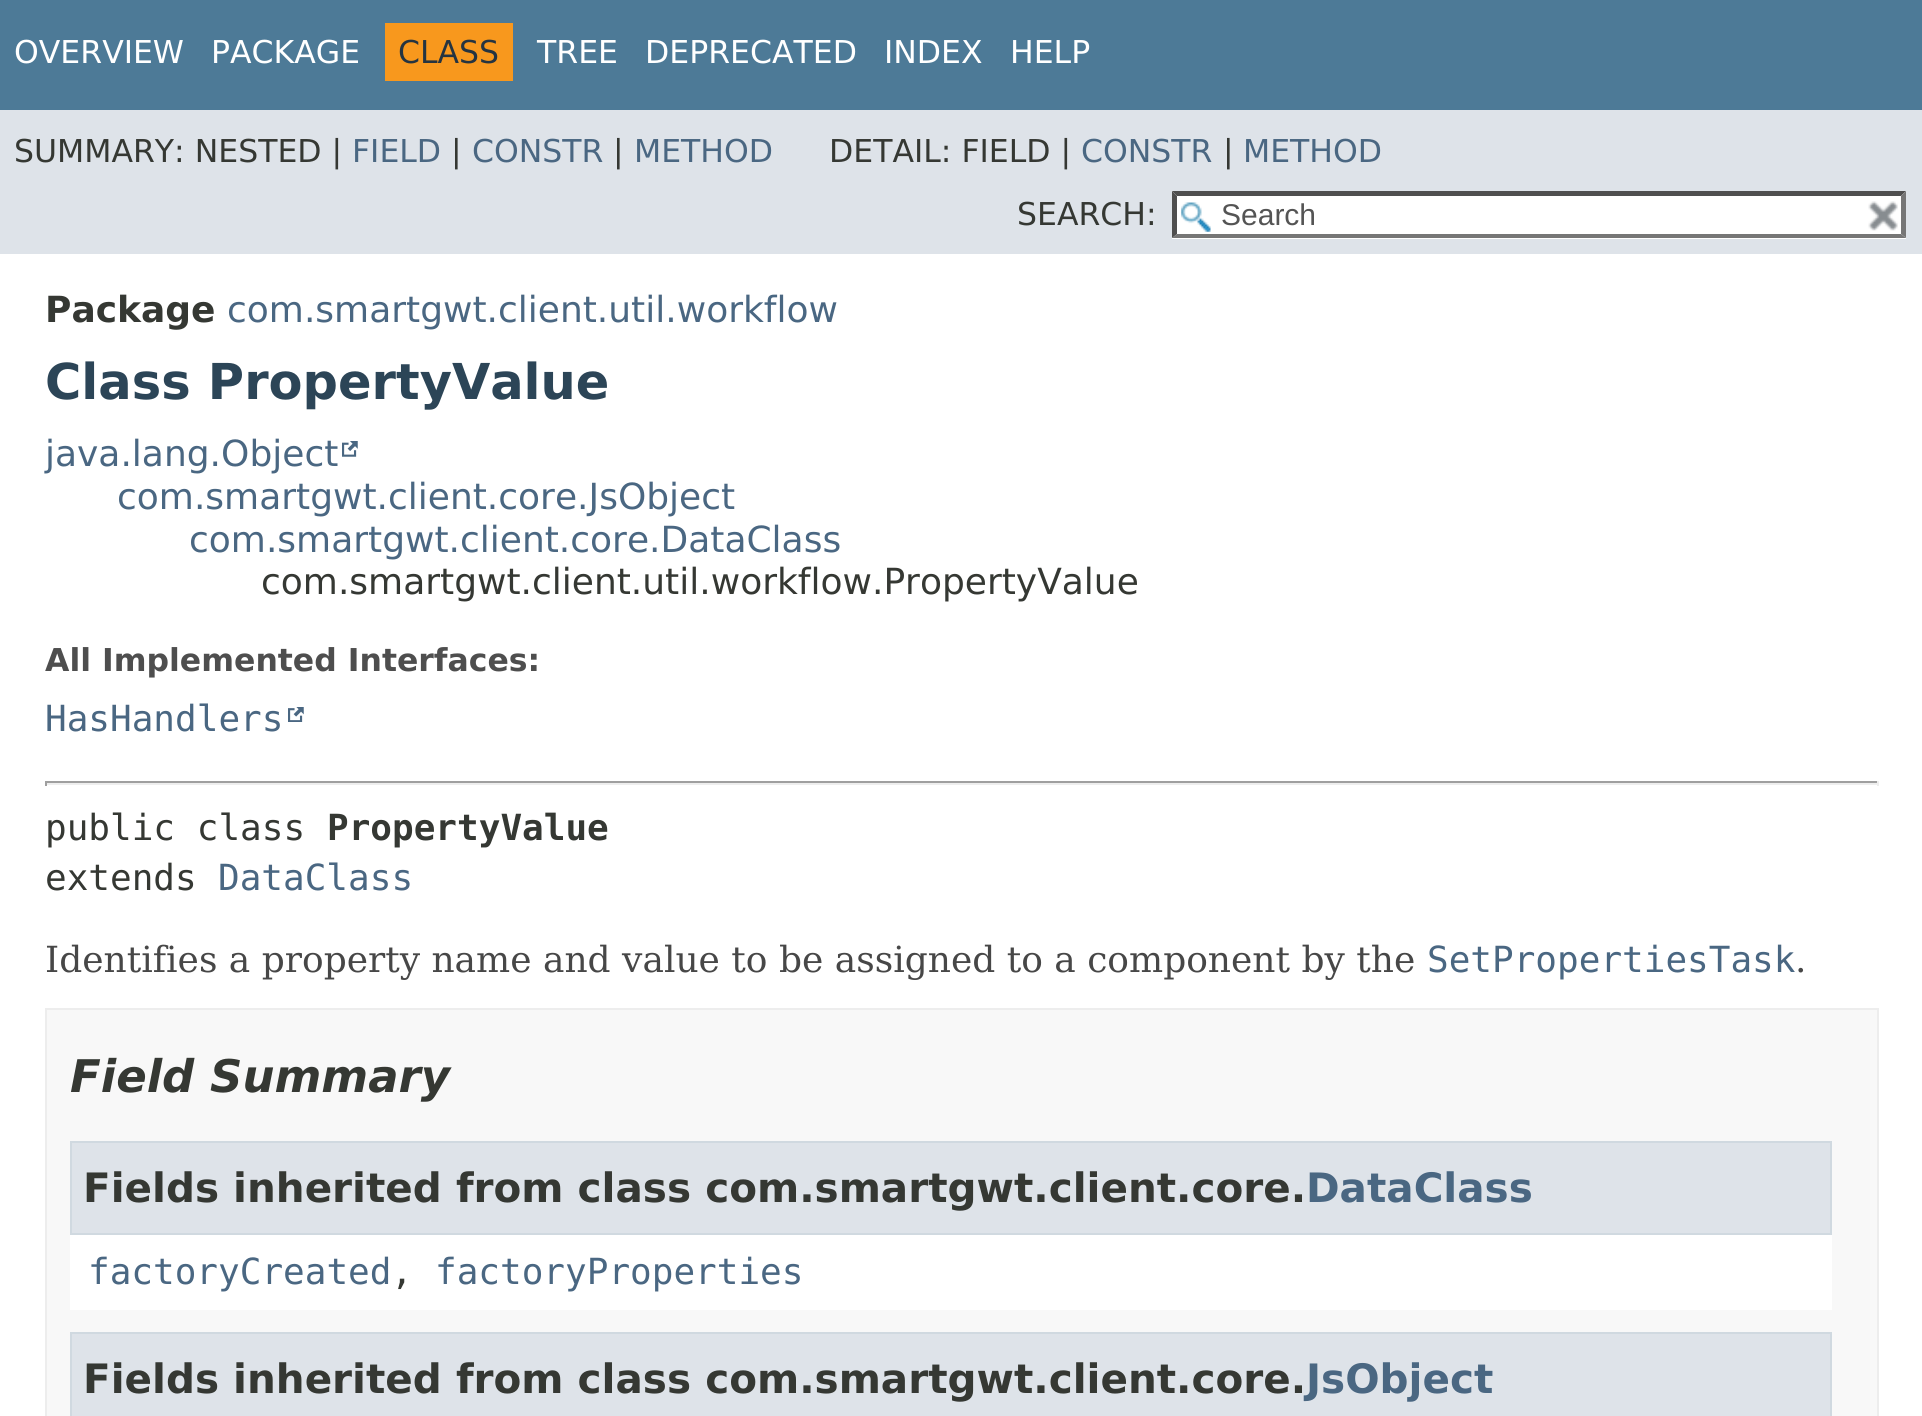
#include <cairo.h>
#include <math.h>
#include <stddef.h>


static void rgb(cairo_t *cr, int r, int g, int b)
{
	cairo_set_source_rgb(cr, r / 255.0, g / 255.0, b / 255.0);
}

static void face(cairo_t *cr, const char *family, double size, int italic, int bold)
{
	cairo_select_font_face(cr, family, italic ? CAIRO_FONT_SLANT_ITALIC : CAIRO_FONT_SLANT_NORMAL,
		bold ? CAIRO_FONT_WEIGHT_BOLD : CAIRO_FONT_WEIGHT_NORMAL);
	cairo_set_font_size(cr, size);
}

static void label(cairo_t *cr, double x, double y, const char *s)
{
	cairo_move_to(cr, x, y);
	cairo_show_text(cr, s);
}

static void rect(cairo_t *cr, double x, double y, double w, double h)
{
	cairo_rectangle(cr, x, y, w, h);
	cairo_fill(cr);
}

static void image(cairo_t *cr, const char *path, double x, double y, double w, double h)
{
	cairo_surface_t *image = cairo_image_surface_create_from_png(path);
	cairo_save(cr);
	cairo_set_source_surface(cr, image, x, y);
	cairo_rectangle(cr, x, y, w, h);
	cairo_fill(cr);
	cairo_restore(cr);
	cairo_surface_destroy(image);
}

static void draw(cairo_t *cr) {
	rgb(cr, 255, 255, 255);
	cairo_paint(cr);
	rgb(cr, 77, 122, 151);
	rect(cr, 0, 0, 1922, 110);
	face(cr, "DejaVu Sans", 31.5, 0, 0);
	rgb(cr, 255, 255, 255);
	label(cr, 14, 63, "OVERVIEW");
	label(cr, 211, 63, "PACKAGE");
	rgb(cr, 248, 152, 29);
	rect(cr, 385, 23, 128, 58);
	rgb(cr, 37, 52, 65);
	label(cr, 398, 63, "CLASS");
	rgb(cr, 255, 255, 255);
	label(cr, 537, 63, "TREE");
	label(cr, 645, 63, "DEPRECATED");
	label(cr, 884, 63, "INDEX");
	label(cr, 1010, 63, "HELP");
	rgb(cr, 222, 227, 233);
	rect(cr, 0, 110, 1922, 144);
	rgb(cr, 53, 56, 51);
	label(cr, 14, 162, "SUMMARY: NESTED |");
	rgb(cr, 74, 103, 130);
	label(cr, 352, 162, "FIELD");
	rgb(cr, 53, 56, 51);
	label(cr, 451, 162, "|");
	rgb(cr, 74, 103, 130);
	label(cr, 472, 162, "CONSTR");
	rgb(cr, 53, 56, 51);
	label(cr, 613, 162, "|");
	rgb(cr, 74, 103, 130);
	label(cr, 634, 162, "METHOD");
	rgb(cr, 53, 56, 51);
	label(cr, 829, 162, "DETAIL: FIELD |");
	rgb(cr, 74, 103, 130);
	label(cr, 1081, 162, "CONSTR");
	rgb(cr, 53, 56, 51);
	label(cr, 1223, 162, "|");
	rgb(cr, 74, 103, 130);
	label(cr, 1243, 162, "METHOD");
	rgb(cr, 53, 56, 51);
	label(cr, 1017, 225, "SEARCH:");
	rgb(cr, 255, 255, 255);
	rect(cr, 1172, 191, 734, 48);
	image(cr, "image0.png", 1181, 202, 30, 30);
	rgb(cr, 79, 79, 79);
	cairo_new_path(cr);
	cairo_move_to(cr, 1172, 191);
	cairo_line_to(cr, 1906, 191);
	cairo_line_to(cr, 1901, 196);
	cairo_line_to(cr, 1177, 196);
	cairo_close_path(cr);
	cairo_fill(cr);
	rgb(cr, 118, 118, 118);
	cairo_new_path(cr);
	cairo_move_to(cr, 1906, 191);
	cairo_line_to(cr, 1906, 238);
	cairo_line_to(cr, 1901, 234);
	cairo_line_to(cr, 1901, 196);
	cairo_close_path(cr);
	cairo_fill(cr);
	cairo_new_path(cr);
	cairo_move_to(cr, 1906, 238);
	cairo_line_to(cr, 1172, 238);
	cairo_line_to(cr, 1177, 234);
	cairo_line_to(cr, 1901, 234);
	cairo_close_path(cr);
	cairo_fill(cr);
	rgb(cr, 79, 79, 79);
	cairo_new_path(cr);
	cairo_move_to(cr, 1172, 238);
	cairo_line_to(cr, 1172, 191);
	cairo_line_to(cr, 1177, 196);
	cairo_line_to(cr, 1177, 234);
	cairo_close_path(cr);
	cairo_fill(cr);
	face(cr, "Liberation Sans", 30, 0, 0);
	rgb(cr, 84, 84, 84);
	label(cr, 1221, 225, "Search");
	image(cr, "image1.png", 1868, 201, 30, 30);
	face(cr, "DejaVu Sans", 36, 0, 1);
	rgb(cr, 53, 56, 51);
	label(cr, 45, 322, "Package");
	face(cr, "DejaVu Sans", 36, 0, 0);
	rgb(cr, 74, 103, 130);
	label(cr, 227, 322, "com.smartgwt.client.util.workflow");
	face(cr, "DejaVu Sans", 49.5, 0, 1);
	rgb(cr, 44, 69, 87);
	label(cr, 45, 399, "Class PropertyValue");
	face(cr, "DejaVu Sans", 36, 0, 0);
	rgb(cr, 74, 103, 130);
	label(cr, 45, 466, "java.lang.Object");
	image(cr, "image2.png", 342, 441, 16, 16);
	label(cr, 117, 509, "com.smartgwt.client.core.JsObject");
	label(cr, 189, 552, "com.smartgwt.client.core.DataClass");
	rgb(cr, 53, 56, 51);
	label(cr, 261, 594, "com.smartgwt.client.util.workflow.PropertyValue");
	face(cr, "DejaVu Sans", 31.5, 0, 1);
	rgb(cr, 78, 78, 78);
	label(cr, 45, 671, "All Implemented Interfaces:");
	face(cr, "DejaVu Sans Mono", 36, 0, 0);
	rgb(cr, 74, 103, 130);
	label(cr, 45, 731, "HasHandlers");
	image(cr, "image3.png", 288, 707, 16, 15);
	rgb(cr, 159, 159, 159);
	rect(cr, 45, 781, 1834, 2);
	rgb(cr, 238, 238, 238);
	rect(cr, 1877, 781, 2, 5);
	rect(cr, 45, 783, 1834, 2);
	rgb(cr, 159, 159, 159);
	rect(cr, 45, 781, 2, 5);
	rgb(cr, 53, 56, 51);
	label(cr, 45, 840, "public class");
	face(cr, "DejaVu Sans Mono", 36, 0, 1);
	label(cr, 327, 840, "PropertyValue");
	face(cr, "DejaVu Sans Mono", 36, 0, 0);
	label(cr, 45, 890, "extends");
	rgb(cr, 74, 103, 130);
	label(cr, 218, 890, "DataClass");
	face(cr, "DejaVu Serif", 36, 0, 0);
	rgb(cr, 71, 71, 71);
	label(cr, 45, 972, "Identifies a property name and value to be assigned to a component by the");
	face(cr, "DejaVu Sans Mono", 36, 0, 0);
	rgb(cr, 74, 103, 130);
	label(cr, 1427, 972, "SetPropertiesTask");
	face(cr, "DejaVu Serif", 36, 0, 0);
	rgb(cr, 71, 71, 71);
	label(cr, 1795, 972, ".");
	rgb(cr, 248, 248, 248);
	cairo_rectangle(cr, 46, 1009, 1832, 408);
	cairo_fill_preserve(cr);
	rgb(cr, 237, 237, 237);
	cairo_stroke(cr);
	face(cr, "DejaVu Sans", 45, 1, 1);
	rgb(cr, 53, 56, 51);
	label(cr, 70, 1092, "Field Summary");
	rgb(cr, 255, 255, 255);
	rect(cr, 70, 1235, 1762, 75);
	rgb(cr, 222, 227, 233);
	cairo_rectangle(cr, 71, 1142, 1760, 92);
	cairo_fill_preserve(cr);
	rgb(cr, 208, 217, 224);
	cairo_stroke(cr);
	face(cr, "DejaVu Sans", 40.5, 0, 1);
	rgb(cr, 53, 56, 51);
	label(cr, 83, 1202, "Fields inherited from class com.smartgwt.client.core.");
	rgb(cr, 74, 103, 130);
	label(cr, 1306, 1202, "DataClass");
	face(cr, "DejaVu Sans Mono", 36, 0, 0);
	label(cr, 88, 1284, "factoryCreated");
	rgb(cr, 53, 56, 51);
	label(cr, 391, 1284, ",");
	rgb(cr, 74, 103, 130);
	label(cr, 435, 1284, "factoryProperties");
	rgb(cr, 222, 227, 233);
	cairo_rectangle(cr, 71, 1333, 1760, 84);
	cairo_fill_preserve(cr);
	rgb(cr, 208, 217, 224);
	cairo_stroke(cr);
	face(cr, "DejaVu Sans", 40.5, 0, 1);
	rgb(cr, 53, 56, 51);
	label(cr, 83, 1393, "Fields inherited from class com.smartgwt.client.core.");
	rgb(cr, 74, 103, 130);
	label(cr, 1306, 1393, "JsObject");
}

int main(void) {
	cairo_surface_t *surface = cairo_image_surface_create(CAIRO_FORMAT_RGB24, 1922, 1416);
	cairo_t *cr = cairo_create(surface);
	cairo_font_options_t *options = cairo_font_options_create();
	cairo_font_options_set_hint_metrics(options, CAIRO_HINT_METRICS_OFF);
	cairo_font_options_set_hint_style(options, CAIRO_HINT_STYLE_NONE);
	cairo_set_font_options(cr, options);
	cairo_set_miter_limit(cr, 4);
	draw(cr);
	cairo_surface_write_to_png(surface, "render.png");
	cairo_font_options_destroy(options);
	cairo_destroy(cr);
	cairo_surface_destroy(surface);
	return 0;
}
